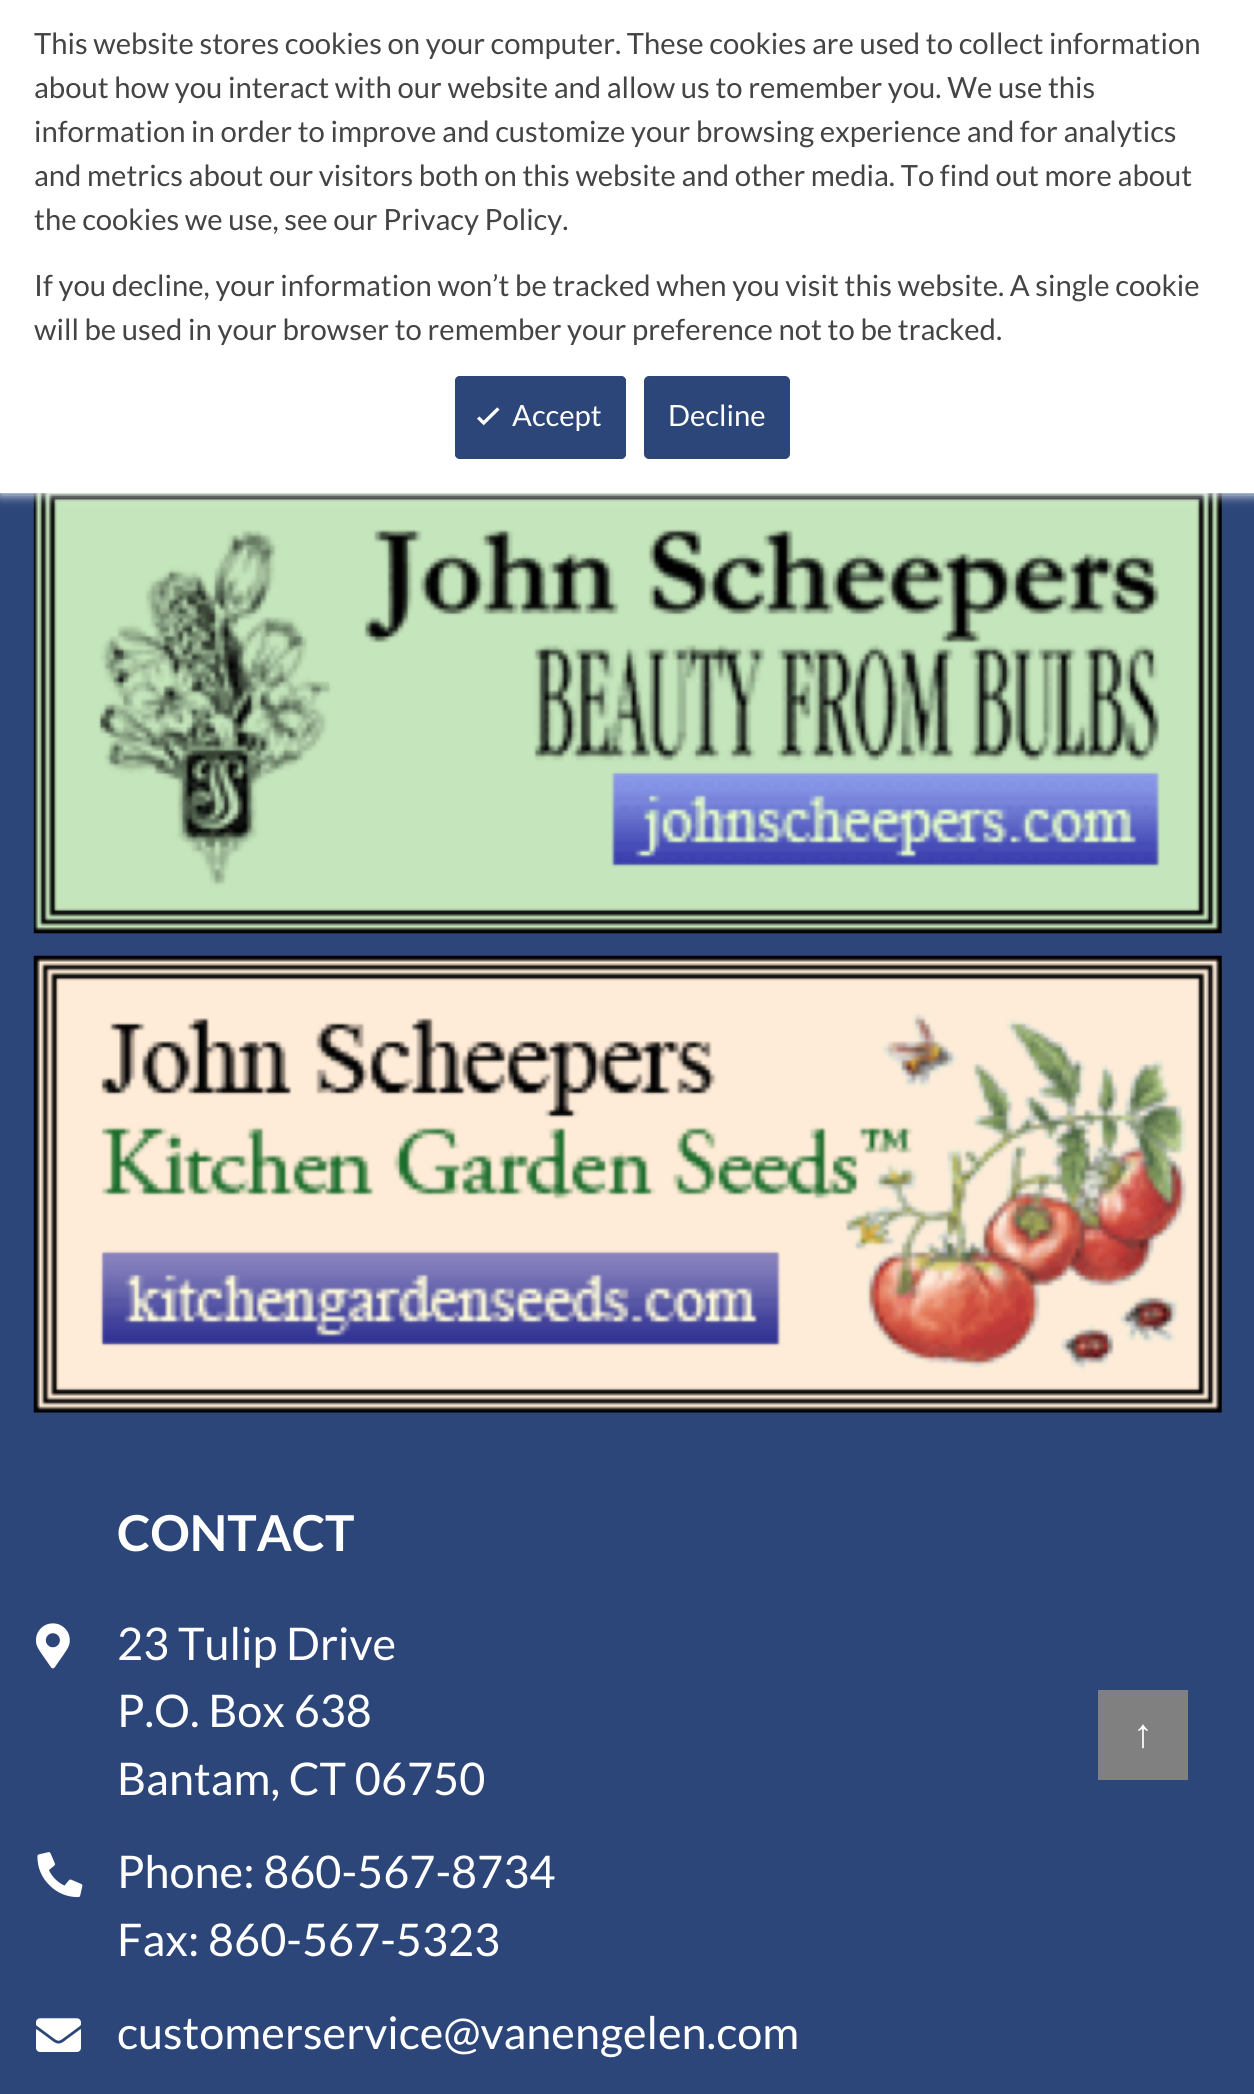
#include <cairo.h>
#include <math.h>
#include <stddef.h>


static void rgb(cairo_t *cr, int r, int g, int b)
{
	cairo_set_source_rgb(cr, r / 255.0, g / 255.0, b / 255.0);
}

static void face(cairo_t *cr, const char *family, double size, int italic, int bold)
{
	cairo_select_font_face(cr, family, italic ? CAIRO_FONT_SLANT_ITALIC : CAIRO_FONT_SLANT_NORMAL,
		bold ? CAIRO_FONT_WEIGHT_BOLD : CAIRO_FONT_WEIGHT_NORMAL);
	cairo_set_font_size(cr, size);
}

static void label(cairo_t *cr, double x, double y, const char *s)
{
	cairo_move_to(cr, x, y);
	cairo_show_text(cr, s);
}

static void rect(cairo_t *cr, double x, double y, double w, double h)
{
	cairo_rectangle(cr, x, y, w, h);
	cairo_fill(cr);
}

static void rrect(cairo_t *cr, double x, double y, double w, double h, double r)
{
	cairo_new_sub_path(cr);
	cairo_arc(cr, x + w - r, y + h - r, r, 0, M_PI / 2);
	cairo_arc(cr, x + r, y + h - r, r, M_PI / 2, M_PI);
	cairo_arc(cr, x + r, y + r, r, M_PI, 1.5 * M_PI);
	cairo_arc(cr, x + w - r, y + r, r, 1.5 * M_PI, 2 * M_PI);
	cairo_close_path(cr);
}

static void soft_shadow(cairo_t *cr, double x, double y, double w, double h, double r, double blur, double alpha)
{
	cairo_push_group_with_content(cr, CAIRO_CONTENT_ALPHA);
	cairo_set_operator(cr, CAIRO_OPERATOR_SOURCE);
	for (int i = 15; i >= -15 && fmin(w, h) + blur * i / 3 > 0; i -= 2) {
		double e = blur * i / 6;
		cairo_set_source_rgba(cr, 0, 0, 0, alpha * erfc((i - 1) / 8.5) / 2);
		rrect(cr, x - e, y - e, w + 2 * e, h + 2 * e, fmax(0, fmin(r + e + blur * .6, fmin(w, h) / 2 + e)));
		cairo_fill(cr);
	}
	cairo_pattern_t *soft = cairo_pop_group(cr);
	cairo_mask(cr, soft);
	cairo_pattern_destroy(soft);
}

static void image(cairo_t *cr, const char *path, double x, double y, double w, double h)
{
	cairo_surface_t *image = cairo_image_surface_create_from_png(path);
	cairo_save(cr);
	cairo_set_source_surface(cr, image, x, y);
	cairo_rectangle(cr, x, y, w, h);
	cairo_fill(cr);
	cairo_restore(cr);
	cairo_surface_destroy(image);
}

static void draw(cairo_t *cr) {
	rgb(cr, 45, 70, 121);
	cairo_paint(cr);
	image(cr, "image1.png", 33, 493, 1189, 441);
	rgb(cr, 234, 240, 246);
	soft_shadow(cr, 0, 2, 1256, 493, 0, 5.5, 1);
	rgb(cr, 255, 255, 255);
	rect(cr, 0, 0, 1254, 493);
	face(cr, "Lato", 29.25, 0, 0);
	rgb(cr, 68, 68, 68);
	label(cr, 34, 54, "This website stores cookies on your computer. These cookies are used to collect information");
	label(cr, 34, 98, "about how you interact with our website and allow us to remember you. We use this");
	label(cr, 34, 142, "information in order to improve and customize your browsing experience and for analytics");
	label(cr, 34, 186, "and metrics about our visitors both on this website and other media. To find out more about");
	label(cr, 34, 230, "the cookies we use, see our Privacy Policy.");
	label(cr, 34, 296, "If you decline, your information won’t be tracked when you visit this website. A single cookie");
	label(cr, 34, 340, "will be used in your browser to remember your preference not to be tracked.");
	rgb(cr, 45, 70, 121);
	rrect(cr, 455, 376, 171, 83, 5);
	cairo_fill(cr);
	image(cr, "image0.png", 477, 407, 23, 19);
	rrect(cr, 456, 377, 169, 81, 4);
	cairo_stroke(cr);
	rgb(cr, 255, 255, 255);
	label(cr, 512, 426, "Accept");
	rgb(cr, 45, 70, 121);
	rrect(cr, 645, 377, 144, 81, 4);
	cairo_fill_preserve(cr);
	cairo_stroke(cr);
	rgb(cr, 255, 255, 255);
	label(cr, 668, 426, "Decline");
	image(cr, "image2.png", 33, 955, 1189, 458);
	face(cr, "Lato", 49.5, 0, 1);
	label(cr, 117, 1551, "CONTACT");
	image(cr, "image3.png", 36, 1623, 34, 46);
	face(cr, "Lato", 45, 0, 0);
	label(cr, 117, 1660, "23 Tulip Drive");
	label(cr, 117, 1727, "P.O. Box 638");
	label(cr, 117, 1795, "Bantam, CT 06750");
	image(cr, "image4.png", 37, 1852, 46, 46);
	label(cr, 117, 1888, "Phone: 860-567-8734");
	label(cr, 117, 1956, "Fax: 860-567-5323");
	image(cr, "image5.png", 36, 2018, 45, 34);
	label(cr, 117, 2049, "customerservice@vanengelen.com");
	rgb(cr, 128, 128, 128);
	rect(cr, 1098, 1690, 90, 90);
	face(cr, "Liberation Serif", 40, 0, 0);
	rgb(cr, 255, 255, 255);
	label(cr, 1133, 1747, "↑");
}

int main(void) {
	cairo_surface_t *surface = cairo_image_surface_create(CAIRO_FORMAT_RGB24, 1254, 2094);
	cairo_t *cr = cairo_create(surface);
	cairo_font_options_t *options = cairo_font_options_create();
	cairo_font_options_set_hint_metrics(options, CAIRO_HINT_METRICS_OFF);
	cairo_font_options_set_hint_style(options, CAIRO_HINT_STYLE_NONE);
	cairo_set_font_options(cr, options);
	cairo_set_miter_limit(cr, 4);
	draw(cr);
	cairo_surface_write_to_png(surface, "render.png");
	cairo_font_options_destroy(options);
	cairo_destroy(cr);
	cairo_surface_destroy(surface);
	return 0;
}
